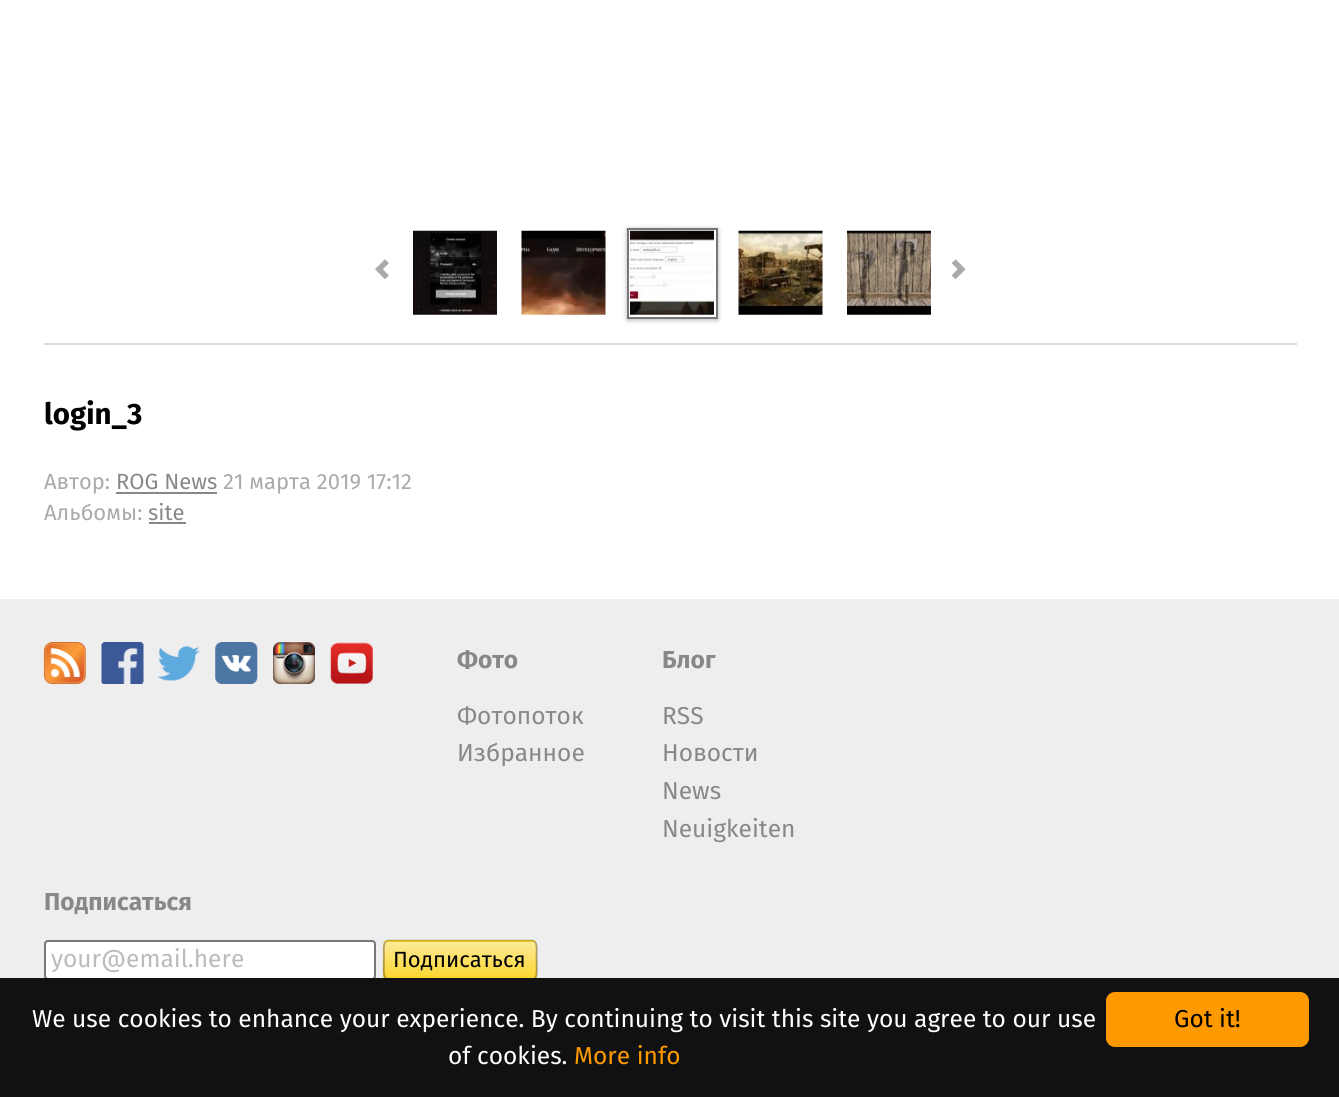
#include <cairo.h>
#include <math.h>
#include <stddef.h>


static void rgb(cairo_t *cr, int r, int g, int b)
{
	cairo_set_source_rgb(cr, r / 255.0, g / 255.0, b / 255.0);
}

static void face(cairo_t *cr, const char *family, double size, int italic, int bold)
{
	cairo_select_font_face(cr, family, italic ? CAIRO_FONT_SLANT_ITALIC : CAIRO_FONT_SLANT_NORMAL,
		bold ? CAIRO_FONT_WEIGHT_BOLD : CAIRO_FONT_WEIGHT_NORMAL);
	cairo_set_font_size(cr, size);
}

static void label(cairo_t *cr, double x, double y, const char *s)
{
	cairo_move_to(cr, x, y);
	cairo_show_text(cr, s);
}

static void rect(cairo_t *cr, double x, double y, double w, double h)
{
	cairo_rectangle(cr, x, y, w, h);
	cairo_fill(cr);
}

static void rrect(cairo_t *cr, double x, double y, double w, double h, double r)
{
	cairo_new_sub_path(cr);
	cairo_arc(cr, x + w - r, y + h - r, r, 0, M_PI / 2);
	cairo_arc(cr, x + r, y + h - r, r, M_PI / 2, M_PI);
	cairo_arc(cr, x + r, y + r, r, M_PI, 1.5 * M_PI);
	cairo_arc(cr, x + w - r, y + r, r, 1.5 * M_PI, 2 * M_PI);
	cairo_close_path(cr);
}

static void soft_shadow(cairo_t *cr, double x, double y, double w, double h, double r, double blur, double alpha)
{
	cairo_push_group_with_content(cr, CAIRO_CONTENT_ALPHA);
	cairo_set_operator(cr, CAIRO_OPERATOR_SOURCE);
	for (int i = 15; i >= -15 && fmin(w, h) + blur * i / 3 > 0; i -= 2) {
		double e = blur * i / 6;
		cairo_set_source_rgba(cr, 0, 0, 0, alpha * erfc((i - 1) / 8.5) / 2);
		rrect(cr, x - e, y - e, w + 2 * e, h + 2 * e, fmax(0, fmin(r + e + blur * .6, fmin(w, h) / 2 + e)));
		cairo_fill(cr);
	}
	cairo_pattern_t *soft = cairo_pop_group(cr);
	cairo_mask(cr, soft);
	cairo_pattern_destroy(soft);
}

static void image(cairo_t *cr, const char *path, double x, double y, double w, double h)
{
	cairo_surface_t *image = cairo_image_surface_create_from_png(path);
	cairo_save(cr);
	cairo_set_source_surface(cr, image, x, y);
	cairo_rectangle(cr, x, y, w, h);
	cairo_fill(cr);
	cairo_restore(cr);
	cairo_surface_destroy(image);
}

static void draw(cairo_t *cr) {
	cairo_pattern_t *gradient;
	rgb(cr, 238, 238, 238);
	cairo_paint(cr);
	rgb(cr, 255, 255, 255);
	rect(cr, 0, 0, 1339, 599);
	rgb(cr, 217, 217, 217);
	rect(cr, 44, 343, 1253, 2);
	image(cr, "image0.png", 375, 259, 14, 20);
	image(cr, "image1.png", 413, 230, 84, 85);
	image(cr, "image2.png", 521, 230, 85, 85);
	cairo_save(cr);
	cairo_set_fill_rule(cr, CAIRO_FILL_RULE_EVEN_ODD);
	cairo_new_path(cr);
	cairo_move_to(cr, 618, 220);
	cairo_line_to(cr, 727, 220);
	cairo_line_to(cr, 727, 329);
	cairo_line_to(cr, 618, 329);
	cairo_close_path(cr);
	cairo_move_to(cr, 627, 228);
	cairo_line_to(cr, 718, 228);
	cairo_line_to(cr, 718, 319);
	cairo_line_to(cr, 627, 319);
	cairo_close_path(cr);
	cairo_clip(cr);
	rgb(cr, 0, 0, 0);
	soft_shadow(cr, 627, 229, 91, 91, 0, 2.5, 0.3);
	cairo_restore(cr);
	cairo_rectangle(cr, 628, 229, 89, 89);
	rgb(cr, 119, 119, 119);
	cairo_stroke(cr);
	image(cr, "image3.png", 630, 230, 84, 85);
	image(cr, "image4.png", 738, 230, 85, 85);
	image(cr, "image5.png", 847, 230, 84, 85);
	image(cr, "image6.png", 952, 259, 14, 20);
	face(cr, "Fira Sans", 29.5, 0, 1);
	rgb(cr, 0, 0, 0);
	label(cr, 44, 424, "login_3");
	face(cr, "Fira Sans", 22, 0, 0);
	rgb(cr, 170, 170, 170);
	label(cr, 44, 489, "Автор:");
	rgb(cr, 136, 136, 136);
	label(cr, 116, 489, "ROG News");
	rect(cr, 116, 492, 101, 2);
	rgb(cr, 170, 170, 170);
	label(cr, 223, 489, "21 марта 2019 17:12");
	label(cr, 44, 520, "Альбомы:");
	rgb(cr, 136, 136, 136);
	label(cr, 148, 520, "site");
	rect(cr, 149, 522, 37, 2);
	image(cr, "image7.png", 43, 642, 43, 42);
	image(cr, "image8.png", 101, 642, 43, 42);
	image(cr, "image9.png", 157, 646, 43, 35);
	image(cr, "image10.png", 215, 642, 43, 42);
	image(cr, "image11.png", 273, 642, 42, 42);
	image(cr, "image12.png", 330, 642, 43, 42);
	face(cr, "Fira Sans", 24.5, 0, 1);
	label(cr, 457, 668, "Фото");
	face(cr, "Fira Sans", 24.5, 0, 0);
	label(cr, 457, 724, "Фотопоток");
	label(cr, 457, 761, "Избранное");
	face(cr, "Fira Sans", 24.5, 0, 1);
	label(cr, 662, 668, "Блог");
	face(cr, "Fira Sans", 24.5, 0, 0);
	label(cr, 662, 724, "RSS");
	label(cr, 662, 761, "Новости");
	label(cr, 662, 799, "News");
	label(cr, 662, 837, "Neuigkeiten");
	face(cr, "Fira Sans", 24.5, 0, 1);
	label(cr, 44, 910, "Подписаться");
	rgb(cr, 255, 255, 255);
	rrect(cr, 45, 941, 330, 38, 3);
	cairo_fill_preserve(cr);
	rgb(cr, 118, 118, 118);
	cairo_stroke(cr);
	face(cr, "Fira Sans", 24.5, 0, 0);
	rgb(cr, 187, 187, 187);
	label(cr, 51, 967, "your@email.here");
	rgb(cr, 0, 0, 0);
	soft_shadow(cr, 383, 942, 154, 40, 5, 1, 0.1);
	rgb(cr, 252, 214, 48);
	rrect(cr, 383, 940, 154, 40, 5);
	cairo_fill(cr);
	cairo_save(cr);
	rrect(cr, 383, 940, 154, 40, 5);
	cairo_clip(cr);
	gradient = cairo_pattern_create_linear(460, 942, 460, 978);
	cairo_pattern_add_color_stop_rgba(gradient, 0, 1, 1, 1, 0.5);
	cairo_pattern_add_color_stop_rgba(gradient, 1, 1, 1, 1, 0);
	cairo_set_source(cr, gradient);
	cairo_pattern_destroy(gradient);
	rect(cr, 383, 942, 154, 34);
	cairo_restore(cr);
	cairo_new_path(cr);
	cairo_move_to(cr, 385.5, 942);
	cairo_curve_to(cr, 386, 941, 387.5, 940.5, 388.5, 940.5);
	cairo_line_to(cr, 532, 940.5);
	cairo_curve_to(cr, 533, 940.5, 534.5, 941, 535, 942);
	cairo_set_source_rgba(cr, 0, 0, 0, 0.2);
	cairo_set_line_width(cr, 1.8);
	cairo_stroke(cr);
	cairo_new_path(cr);
	cairo_move_to(cr, 535, 942);
	cairo_curve_to(cr, 537.5, 944.5, 536.5, 952, 536.5, 955);
	cairo_curve_to(cr, 536.5, 985, 541, 979, 508, 979);
	cairo_line_to(cr, 412.5, 979);
	cairo_curve_to(cr, 379.5, 979, 384, 985, 384, 955);
	cairo_curve_to(cr, 384, 952, 383, 944.5, 385.5, 942);
	cairo_set_source_rgba(cr, 0, 0, 0, 0.3);
	cairo_stroke(cr);
	face(cr, "Fira Sans", 22, 0, 0);
	rgb(cr, 0, 0, 0);
	label(cr, 393, 967, "Подписаться");
	rgb(cr, 17, 17, 17);
	rect(cr, 0, 978, 1339, 119);
	face(cr, "Fira Sans", 24.5, 0, 0);
	rgb(cr, 255, 255, 255);
	label(cr, 32, 1027, "We use cookies to enhance your experience. By continuing to visit this site you agree to our use");
	label(cr, 448, 1064, "of cookies.");
	rgb(cr, 255, 153, 0);
	label(cr, 574, 1064, "More info");
	rrect(cr, 1106, 992, 203, 55, 9);
	cairo_fill(cr);
	rgb(cr, 0, 0, 0);
	label(cr, 1174, 1027, "Got it!");
}

int main(void) {
	cairo_surface_t *surface = cairo_image_surface_create(CAIRO_FORMAT_RGB24, 1339, 1097);
	cairo_t *cr = cairo_create(surface);
	cairo_font_options_t *options = cairo_font_options_create();
	cairo_font_options_set_hint_metrics(options, CAIRO_HINT_METRICS_OFF);
	cairo_font_options_set_hint_style(options, CAIRO_HINT_STYLE_NONE);
	cairo_set_font_options(cr, options);
	cairo_set_miter_limit(cr, 4);
	draw(cr);
	cairo_surface_write_to_png(surface, "render.png");
	cairo_font_options_destroy(options);
	cairo_destroy(cr);
	cairo_surface_destroy(surface);
	return 0;
}
